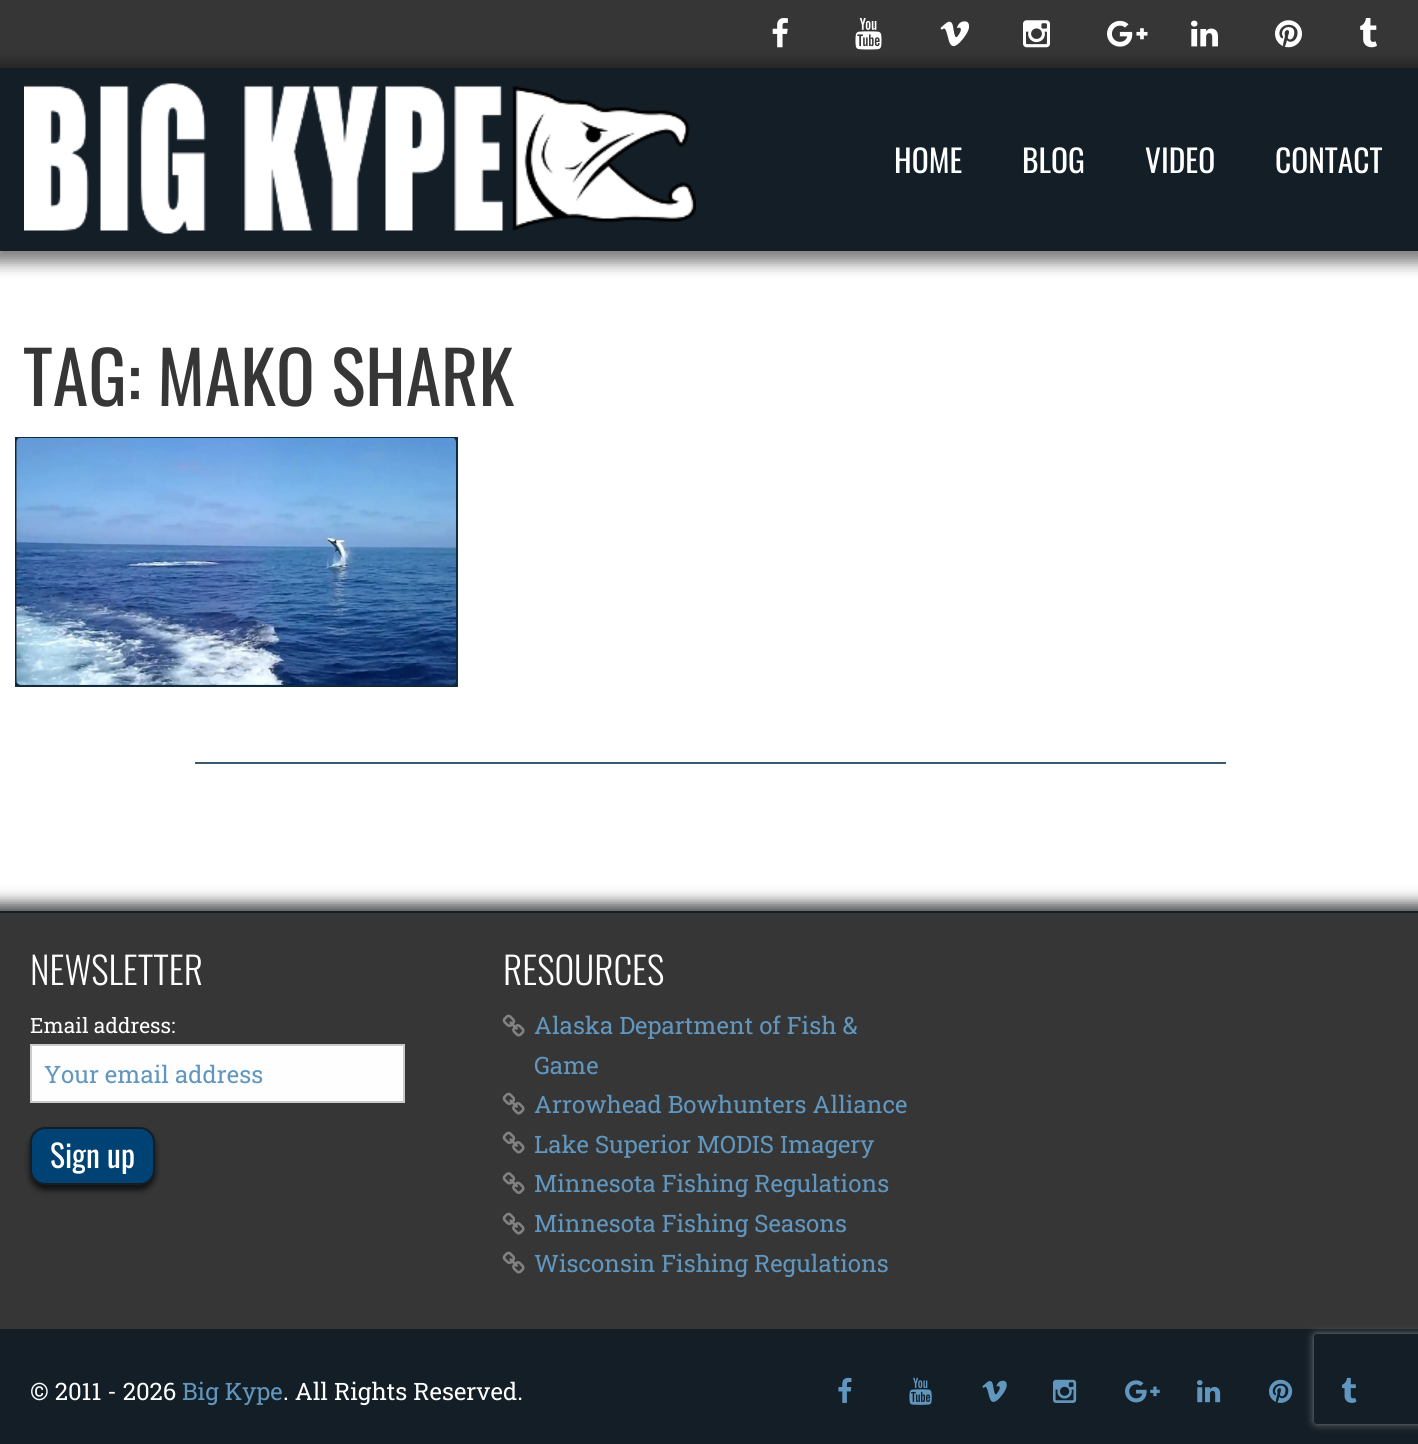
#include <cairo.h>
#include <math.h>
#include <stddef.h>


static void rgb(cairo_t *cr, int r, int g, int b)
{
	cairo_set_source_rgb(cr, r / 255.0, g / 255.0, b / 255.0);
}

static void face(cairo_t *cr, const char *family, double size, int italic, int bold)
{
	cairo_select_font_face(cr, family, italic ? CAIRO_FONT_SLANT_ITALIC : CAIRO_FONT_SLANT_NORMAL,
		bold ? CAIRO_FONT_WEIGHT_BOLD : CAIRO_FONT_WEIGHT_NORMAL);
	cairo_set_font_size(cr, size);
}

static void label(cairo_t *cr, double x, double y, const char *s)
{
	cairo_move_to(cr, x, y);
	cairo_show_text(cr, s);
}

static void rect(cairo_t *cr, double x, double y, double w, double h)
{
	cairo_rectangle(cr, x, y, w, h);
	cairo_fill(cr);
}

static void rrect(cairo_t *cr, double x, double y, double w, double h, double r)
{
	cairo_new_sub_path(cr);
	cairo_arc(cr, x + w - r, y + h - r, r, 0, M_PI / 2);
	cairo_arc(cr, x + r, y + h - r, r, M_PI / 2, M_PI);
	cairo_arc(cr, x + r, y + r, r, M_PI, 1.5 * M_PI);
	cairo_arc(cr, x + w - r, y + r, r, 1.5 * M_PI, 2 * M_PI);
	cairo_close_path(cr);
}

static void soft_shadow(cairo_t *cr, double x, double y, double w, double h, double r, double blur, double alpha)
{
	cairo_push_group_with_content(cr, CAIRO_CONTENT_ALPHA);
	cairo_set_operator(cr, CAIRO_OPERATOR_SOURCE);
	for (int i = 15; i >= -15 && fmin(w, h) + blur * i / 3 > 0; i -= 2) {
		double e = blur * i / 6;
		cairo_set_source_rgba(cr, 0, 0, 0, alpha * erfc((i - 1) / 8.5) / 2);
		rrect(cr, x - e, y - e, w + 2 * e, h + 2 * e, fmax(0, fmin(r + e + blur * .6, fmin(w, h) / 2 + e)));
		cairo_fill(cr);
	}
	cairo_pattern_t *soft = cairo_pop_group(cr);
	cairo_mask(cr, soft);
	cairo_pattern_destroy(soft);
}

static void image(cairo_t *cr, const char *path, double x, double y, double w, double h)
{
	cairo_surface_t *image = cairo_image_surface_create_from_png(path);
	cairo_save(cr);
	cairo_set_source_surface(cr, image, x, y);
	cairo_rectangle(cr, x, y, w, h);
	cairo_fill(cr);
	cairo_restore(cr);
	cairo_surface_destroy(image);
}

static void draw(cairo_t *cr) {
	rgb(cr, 255, 255, 255);
	cairo_paint(cr);
	rgb(cr, 54, 54, 54);
	rect(cr, 0, 0, 1418, 68);
	image(cr, "image0.png", 772, 18, 16, 30);
	image(cr, "image1.png", 855, 18, 27, 32);
	image(cr, "image2.png", 940, 21, 30, 26);
	image(cr, "image3.png", 1023, 20, 27, 28);
	image(cr, "image4.png", 1107, 20, 41, 27);
	image(cr, "image5.png", 1191, 20, 27, 27);
	image(cr, "image6.png", 1275, 20, 27, 28);
	image(cr, "image7.png", 1360, 18, 17, 30);
	rgb(cr, 0, 0, 0);
	soft_shadow(cr, -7, 65, 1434, 198, 0, 7.5, 0.5);
	rgb(cr, 19, 30, 38);
	rect(cr, 0, 68, 1418, 183);
	image(cr, "image8.png", 24, 83, 672, 151);
	face(cr, "Oswald", 31.5, 0, 0);
	rgb(cr, 255, 255, 255);
	label(cr, 894, 173, "HOME");
	label(cr, 1022, 173, "BLOG");
	label(cr, 1145, 173, "VIDEO");
	label(cr, 1275, 173, "CONTACT");
	face(cr, "Oswald", 72, 0, 0);
	rgb(cr, 54, 54, 54);
	label(cr, 23, 406, "TAG: MAKO SHARK");
	rgb(cr, 17, 44, 64);
	rect(cr, 15, 437, 443, 250);
	rrect(cr, 16, 438, 441, 248, 5);
	rgb(cr, 16, 42, 61);
	cairo_stroke(cr);
	image(cr, "image9.png", 16, 438, 440, 247);
	rgb(cr, 58, 91, 115);
	rect(cr, 195, 762, 1031, 2);
	rgb(cr, 0, 0, 0);
	soft_shadow(cr, -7, 903, 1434, 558, 0, 7.5, 0.7);
	rgb(cr, 19, 30, 38);
	rect(cr, 0, 1329, 1418, 115);
	rgb(cr, 54, 54, 54);
	rect(cr, 0, 913, 1418, 416);
	rgb(cr, 19, 30, 38);
	rect(cr, 0, 911, 1418, 2);
	face(cr, "Oswald Light", 37.5, 0, 0);
	rgb(cr, 255, 255, 255);
	label(cr, 30, 985, "NEWSLETTER");
	face(cr, "Roboto Slab", 21, 0, 0);
	label(cr, 30, 1033, "Email address:");
	rgb(cr, 254, 254, 254);
	cairo_rectangle(cr, 31, 1045, 373, 57);
	cairo_fill_preserve(cr);
	rgb(cr, 202, 202, 202);
	cairo_stroke(cr);
	face(cr, "Roboto Slab", 24, 0, 0);
	rgb(cr, 97, 151, 191);
	label(cr, 44, 1083, "Your email address");
	rgb(cr, 0, 0, 0);
	soft_shadow(cr, 30, 1131, 125, 59, 15, 3, 0.7);
	rgb(cr, 0, 66, 115);
	rrect(cr, 31, 1128, 123, 56, 14);
	cairo_fill_preserve(cr);
	rgb(cr, 19, 30, 38);
	cairo_stroke(cr);
	face(cr, "Oswald", 31.5, 0, 0);
	rgb(cr, 255, 255, 255);
	label(cr, 50, 1168, "Sign up");
	face(cr, "Oswald Light", 37.5, 0, 0);
	label(cr, 503, 985, "RESOURCES");
	image(cr, "image10.png", 502, 1014, 23, 23);
	face(cr, "Roboto Slab", 24, 0, 0);
	rgb(cr, 97, 151, 191);
	label(cr, 534, 1034, "Alaska Department of Fish &");
	label(cr, 534, 1074, "Game");
	image(cr, "image10.png", 502, 1092, 23, 23);
	label(cr, 534, 1113, "Arrowhead Bowhunters Alliance");
	image(cr, "image10.png", 502, 1131, 23, 23);
	label(cr, 534, 1153, "Lake Superior MODIS Imagery");
	image(cr, "image11.png", 502, 1172, 23, 22);
	label(cr, 534, 1192, "Minnesota Fishing Regulations");
	image(cr, "image10.png", 502, 1212, 23, 23);
	label(cr, 534, 1232, "Minnesota Fishing Seasons");
	image(cr, "image10.png", 502, 1251, 23, 23);
	label(cr, 534, 1272, "Wisconsin Fishing Regulations");
	rgb(cr, 255, 255, 255);
	label(cr, 30, 1400, "© 2011 - 2026");
	rgb(cr, 97, 151, 191);
	label(cr, 182, 1400, "Big Kype");
	rgb(cr, 255, 255, 255);
	label(cr, 283, 1400, ". All Rights Reserved.");
	image(cr, "image12.png", 838, 1377, 14, 26);
	image(cr, "image13.png", 909, 1377, 23, 28);
	image(cr, "image14.png", 982, 1380, 25, 22);
	image(cr, "image15.png", 1053, 1379, 24, 24);
	image(cr, "image16.png", 1125, 1380, 35, 23);
	image(cr, "image17.png", 1197, 1380, 24, 23);
	image(cr, "image18.png", 1269, 1379, 24, 24);
	image(cr, "image19.png", 1342, 1377, 15, 26);
	cairo_save(cr);
	cairo_set_fill_rule(cr, CAIRO_FILL_RULE_EVEN_ODD);
	cairo_new_path(cr);
	cairo_move_to(cr, 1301, 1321);
	cairo_line_to(cr, 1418, 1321);
	cairo_line_to(cr, 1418, 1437);
	cairo_line_to(cr, 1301, 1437);
	cairo_close_path(cr);
	cairo_move_to(cr, 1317, 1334);
	cairo_line_to(cr, 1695, 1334);
	cairo_curve_to(cr, 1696.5, 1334, 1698, 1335.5, 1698, 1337);
	cairo_line_to(cr, 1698, 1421);
	cairo_curve_to(cr, 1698, 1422.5, 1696.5, 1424, 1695, 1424);
	cairo_line_to(cr, 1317, 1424);
	cairo_curve_to(cr, 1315.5, 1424, 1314, 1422.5, 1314, 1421);
	cairo_line_to(cr, 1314, 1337);
	cairo_curve_to(cr, 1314, 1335.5, 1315.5, 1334, 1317, 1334);
	cairo_close_path(cr);
	cairo_clip(cr);
	rgb(cr, 128, 128, 128);
	soft_shadow(cr, 1314, 1334, 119, 90, 3, 4, 1);
	cairo_restore(cr);
}

int main(void) {
	cairo_surface_t *surface = cairo_image_surface_create(CAIRO_FORMAT_RGB24, 1418, 1444);
	cairo_t *cr = cairo_create(surface);
	cairo_font_options_t *options = cairo_font_options_create();
	cairo_font_options_set_hint_metrics(options, CAIRO_HINT_METRICS_OFF);
	cairo_font_options_set_hint_style(options, CAIRO_HINT_STYLE_NONE);
	cairo_set_font_options(cr, options);
	cairo_set_miter_limit(cr, 4);
	draw(cr);
	cairo_surface_write_to_png(surface, "render.png");
	cairo_font_options_destroy(options);
	cairo_destroy(cr);
	cairo_surface_destroy(surface);
	return 0;
}
